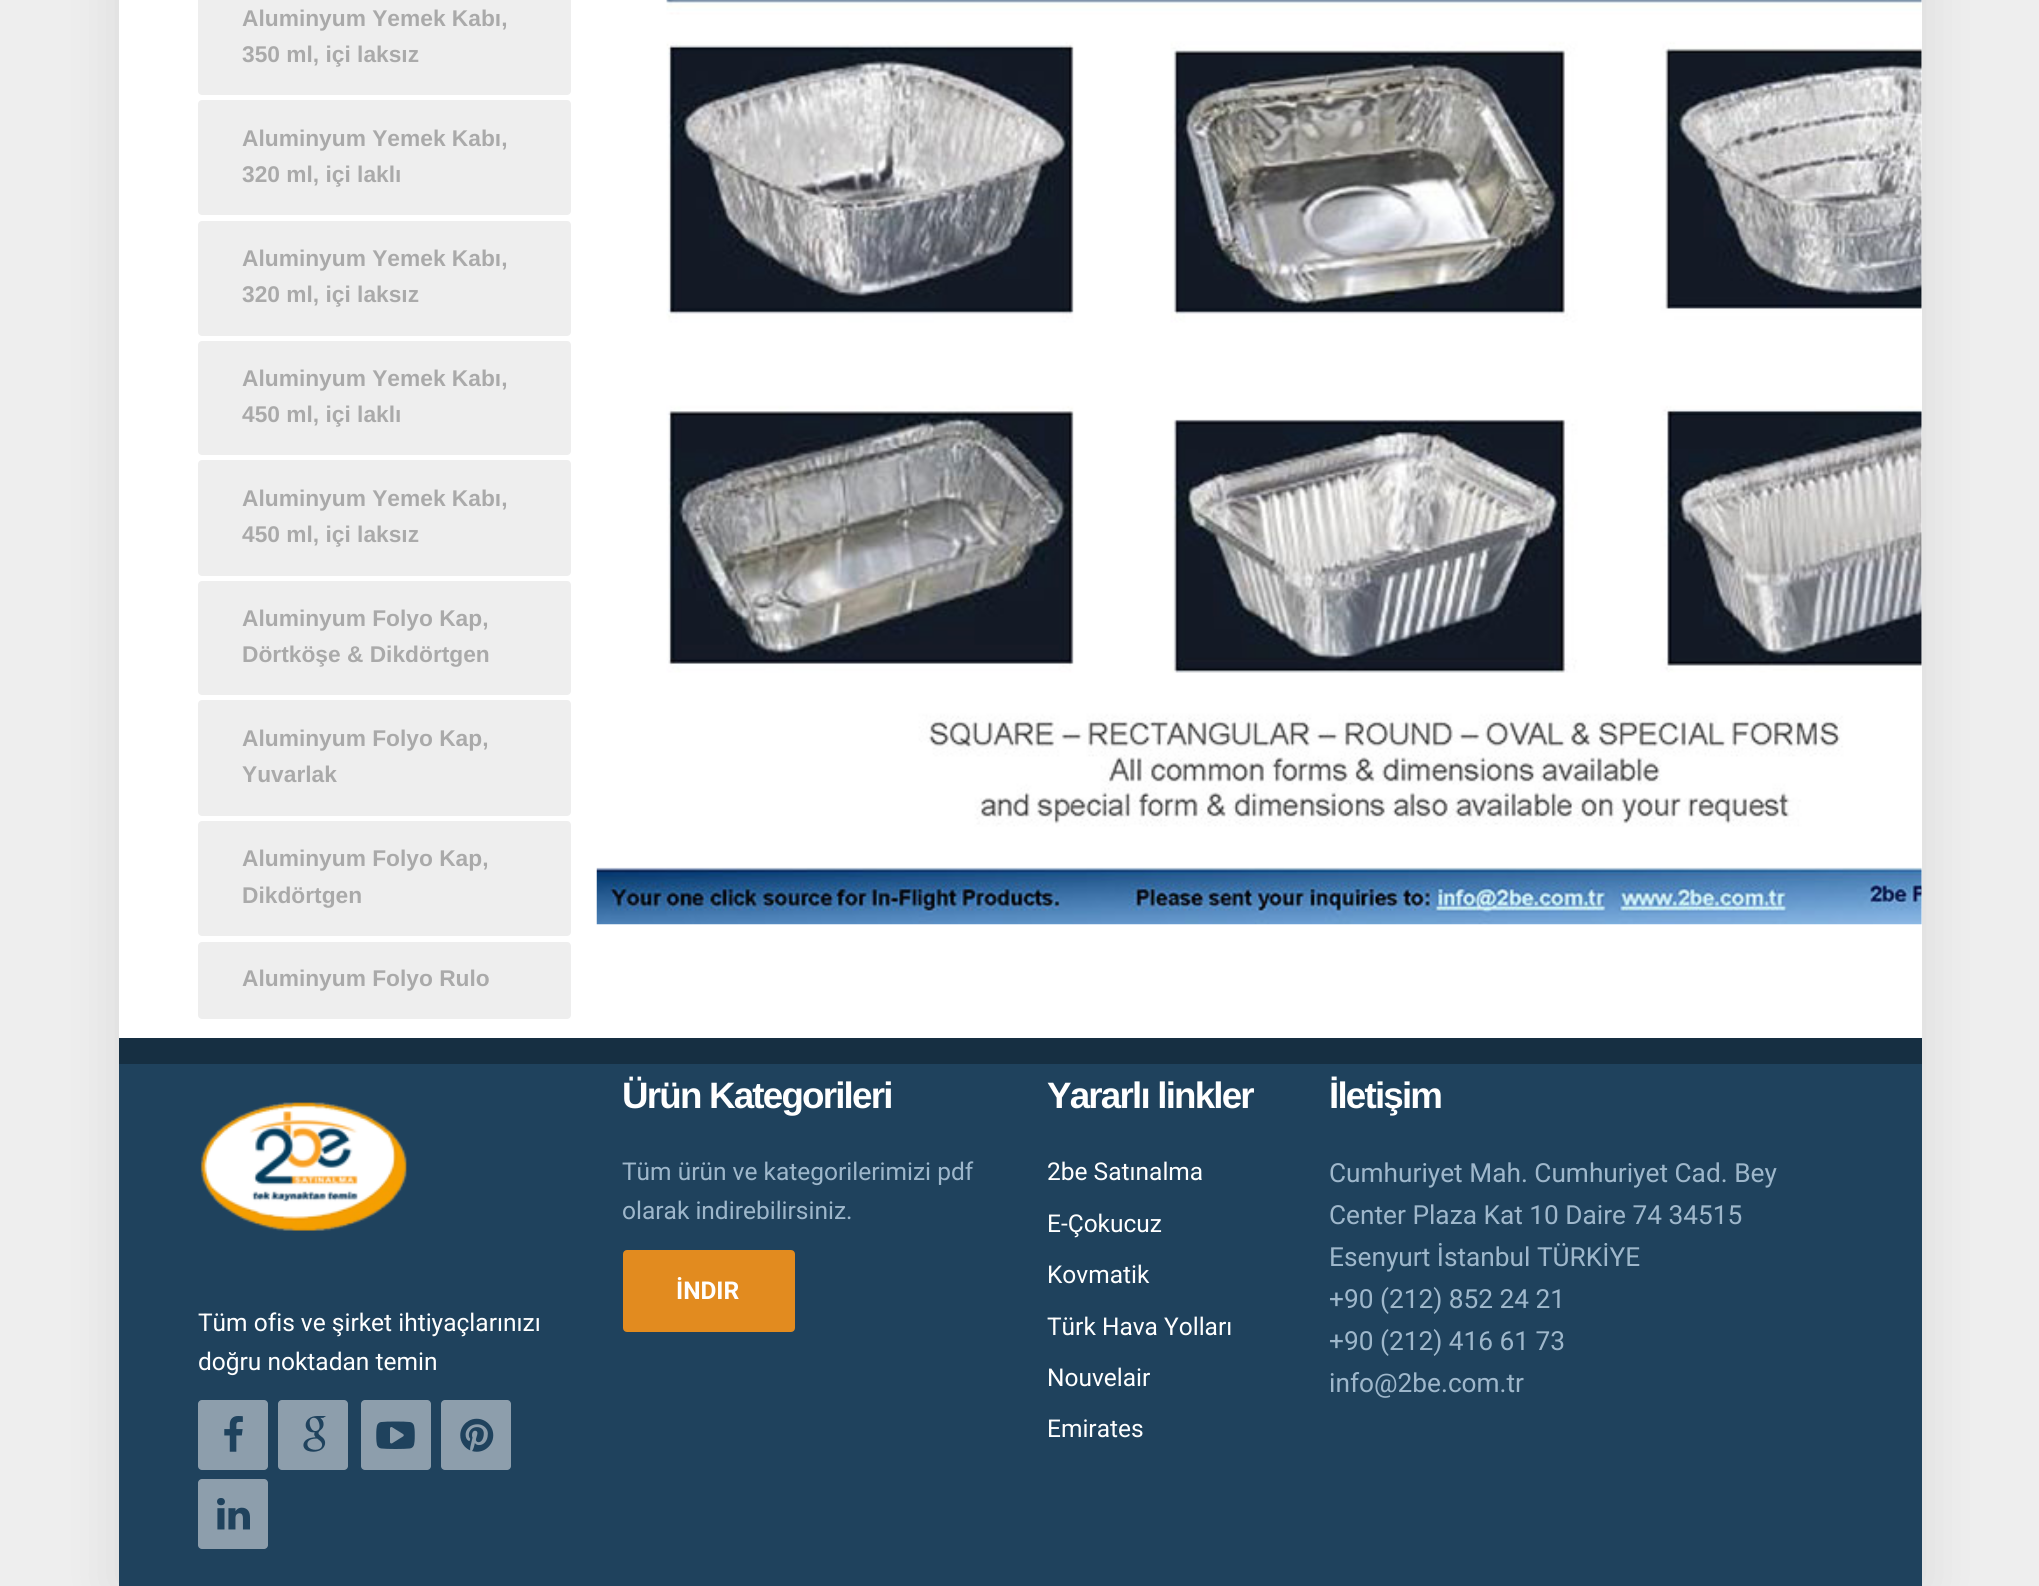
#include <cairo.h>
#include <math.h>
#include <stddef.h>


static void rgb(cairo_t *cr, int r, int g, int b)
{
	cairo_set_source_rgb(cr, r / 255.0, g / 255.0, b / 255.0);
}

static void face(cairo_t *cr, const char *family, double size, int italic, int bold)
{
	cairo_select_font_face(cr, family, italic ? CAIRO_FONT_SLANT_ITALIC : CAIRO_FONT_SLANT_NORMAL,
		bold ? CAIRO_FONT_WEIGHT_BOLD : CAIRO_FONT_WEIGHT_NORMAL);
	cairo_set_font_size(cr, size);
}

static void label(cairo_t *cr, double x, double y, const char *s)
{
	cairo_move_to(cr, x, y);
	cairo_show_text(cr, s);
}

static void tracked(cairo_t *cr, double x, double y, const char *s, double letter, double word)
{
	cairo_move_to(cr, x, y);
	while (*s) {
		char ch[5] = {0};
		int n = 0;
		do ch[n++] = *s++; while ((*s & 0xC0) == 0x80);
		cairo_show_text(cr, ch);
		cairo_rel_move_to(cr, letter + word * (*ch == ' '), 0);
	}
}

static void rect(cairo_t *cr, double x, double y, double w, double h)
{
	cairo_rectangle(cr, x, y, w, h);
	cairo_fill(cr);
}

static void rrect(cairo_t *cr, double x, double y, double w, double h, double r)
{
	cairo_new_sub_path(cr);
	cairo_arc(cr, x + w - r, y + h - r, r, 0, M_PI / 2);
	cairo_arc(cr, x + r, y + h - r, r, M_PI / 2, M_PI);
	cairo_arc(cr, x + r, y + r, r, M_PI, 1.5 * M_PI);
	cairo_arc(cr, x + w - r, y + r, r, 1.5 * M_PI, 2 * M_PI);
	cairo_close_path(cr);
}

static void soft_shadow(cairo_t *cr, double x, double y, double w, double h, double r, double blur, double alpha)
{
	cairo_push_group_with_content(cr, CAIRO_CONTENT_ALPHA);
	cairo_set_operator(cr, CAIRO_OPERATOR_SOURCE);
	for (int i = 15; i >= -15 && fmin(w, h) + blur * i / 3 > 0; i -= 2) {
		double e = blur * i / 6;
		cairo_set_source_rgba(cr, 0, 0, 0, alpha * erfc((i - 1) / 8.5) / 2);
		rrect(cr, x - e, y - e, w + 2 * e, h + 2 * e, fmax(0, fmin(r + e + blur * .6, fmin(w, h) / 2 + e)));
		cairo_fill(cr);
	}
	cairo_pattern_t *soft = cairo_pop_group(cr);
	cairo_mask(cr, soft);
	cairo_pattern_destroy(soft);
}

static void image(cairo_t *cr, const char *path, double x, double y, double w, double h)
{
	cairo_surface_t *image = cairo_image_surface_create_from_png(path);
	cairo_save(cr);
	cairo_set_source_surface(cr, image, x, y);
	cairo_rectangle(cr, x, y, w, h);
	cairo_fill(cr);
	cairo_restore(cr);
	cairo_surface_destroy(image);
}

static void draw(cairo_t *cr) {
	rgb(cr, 238, 238, 238);
	cairo_paint(cr);
	rgb(cr, 0, 0, 0);
	soft_shadow(cr, 119, -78, 1803, 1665, 0, 26, 0.1);
	rgb(cr, 255, 255, 255);
	rect(cr, 119, 0, 1803, 1038);
	rgb(cr, 238, 238, 238);
	rrect(cr, 198, -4, 373, 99, 4);
	cairo_fill(cr);
	face(cr, "Liberation Sans", 22.75, 0, 1);
	rgb(cr, 170, 170, 170);
	label(cr, 242, 26, "Aluminyum Yemek Kabı,");
	label(cr, 242, 62, "350 ml, içi laksız");
	rgb(cr, 238, 238, 238);
	rrect(cr, 198, 100, 373, 115, 4);
	cairo_fill(cr);
	rgb(cr, 170, 170, 170);
	label(cr, 242, 146, "Aluminyum Yemek Kabı,");
	label(cr, 242, 182, "320 ml, içi laklı");
	rgb(cr, 238, 238, 238);
	rrect(cr, 198, 221, 373, 115, 4);
	cairo_fill(cr);
	rgb(cr, 170, 170, 170);
	label(cr, 242, 266, "Aluminyum Yemek Kabı,");
	label(cr, 242, 302, "320 ml, içi laksız");
	rgb(cr, 238, 238, 238);
	rrect(cr, 198, 341, 373, 114, 4);
	cairo_fill(cr);
	rgb(cr, 170, 170, 170);
	label(cr, 242, 386, "Aluminyum Yemek Kabı,");
	label(cr, 242, 422, "450 ml, içi laklı");
	rgb(cr, 238, 238, 238);
	rrect(cr, 198, 460, 373, 116, 4);
	cairo_fill(cr);
	rgb(cr, 170, 170, 170);
	label(cr, 242, 506, "Aluminyum Yemek Kabı,");
	label(cr, 242, 542, "450 ml, içi laksız");
	rgb(cr, 238, 238, 238);
	rrect(cr, 198, 581, 373, 114, 4);
	cairo_fill(cr);
	rgb(cr, 170, 170, 170);
	label(cr, 242, 626, "Aluminyum Folyo Kap,");
	label(cr, 242, 662, "Dörtköşe & Dikdörtgen");
	rgb(cr, 238, 238, 238);
	rrect(cr, 198, 700, 373, 116, 4);
	cairo_fill(cr);
	rgb(cr, 170, 170, 170);
	label(cr, 242, 746, "Aluminyum Folyo Kap,");
	label(cr, 242, 782, "Yuvarlak");
	rgb(cr, 238, 238, 238);
	rrect(cr, 198, 821, 373, 115, 4);
	cairo_fill(cr);
	rgb(cr, 170, 170, 170);
	label(cr, 242, 866, "Aluminyum Folyo Kap,");
	label(cr, 242, 903, "Dikdörtgen");
	rgb(cr, 238, 238, 238);
	rrect(cr, 198, 942, 373, 77, 4);
	cairo_fill(cr);
	rgb(cr, 170, 170, 170);
	label(cr, 242, 986, "Aluminyum Folyo Rulo");
	image(cr, "image0.png", 596, 0, 1326, 925);
	rgb(cr, 22, 47, 66);
	rect(cr, 119, 1038, 1803, 26);
	rgb(cr, 31, 66, 93);
	rect(cr, 119, 1064, 1803, 522);
	image(cr, "image1.png", 200, 1102, 207, 129);
	face(cr, "Roboto", 24.5, 0, 0);
	rgb(cr, 255, 255, 255);
	label(cr, 198, 1331, "Tüm ofis ve şirket ihtiyaçlarınızı");
	label(cr, 198, 1370, "doğru noktadan temin");
	rgb(cr, 141, 158, 172);
	rrect(cr, 198, 1400, 70, 70, 4);
	cairo_fill(cr);
	image(cr, "image2.png", 224, 1416, 19, 36);
	rrect(cr, 278, 1400, 70, 70, 4);
	cairo_fill(cr);
	image(cr, "image3.png", 303, 1416, 23, 36);
	rrect(cr, 361, 1400, 70, 70, 4);
	cairo_fill(cr);
	image(cr, "image4.png", 376, 1421, 39, 28);
	rrect(cr, 441, 1400, 70, 70, 4);
	cairo_fill(cr);
	image(cr, "image5.png", 460, 1418, 34, 34);
	rrect(cr, 198, 1479, 70, 70, 4);
	cairo_fill(cr);
	image(cr, "image6.png", 217, 1498, 33, 32);
	face(cr, "Liberation Sans", 36.75, 0, 1);
	rgb(cr, 255, 255, 255);
	tracked(cr, 622, 1108, "Ürün Kategorileri", -1.8, 0);
	face(cr, "Roboto", 24.5, 0, 0);
	rgb(cr, 158, 183, 203);
	label(cr, 622, 1180, "Tüm ürün ve kategorilerimizi pdf");
	label(cr, 622, 1219, "olarak indirebilirsiniz.");
	rgb(cr, 226, 139, 31);
	rrect(cr, 624, 1251, 170, 80, 3);
	cairo_fill_preserve(cr);
	cairo_stroke(cr);
	face(cr, "Roboto", 24.5, 0, 1);
	rgb(cr, 255, 255, 255);
	label(cr, 676, 1299, "İNDIR");
	face(cr, "Liberation Sans", 36.75, 0, 1);
	tracked(cr, 1047, 1108, "Yararlı linkler", -1.8, 0);
	face(cr, "Roboto", 24.5, 0, 0);
	label(cr, 1047, 1180, "2be Satınalma");
	label(cr, 1047, 1232, "E-Çokucuz");
	label(cr, 1047, 1283, "Kovmatik");
	label(cr, 1047, 1335, "Türk Hava Yolları");
	label(cr, 1047, 1386, "Nouvelair");
	label(cr, 1047, 1437, "Emirates");
	face(cr, "Liberation Sans", 36.75, 0, 1);
	tracked(cr, 1329, 1108, "İletişim", -1.8, 0);
	face(cr, "Roboto", 26.25, 0, 0);
	rgb(cr, 158, 183, 203);
	label(cr, 1329, 1182, "Cumhuriyet Mah. Cumhuriyet Cad. Bey");
	label(cr, 1329, 1224, "Center Plaza Kat 10 Daire 74 34515");
	label(cr, 1329, 1266, "Esenyurt İstanbul TÜRKİYE");
	label(cr, 1329, 1308, "+90 (212) 852 24 21");
	label(cr, 1329, 1350, "+90 (212) 416 61 73");
	label(cr, 1329, 1392, "info@2be.com.tr");
}

int main(void) {
	cairo_surface_t *surface = cairo_image_surface_create(CAIRO_FORMAT_RGB24, 2039, 1586);
	cairo_t *cr = cairo_create(surface);
	cairo_font_options_t *options = cairo_font_options_create();
	cairo_font_options_set_hint_metrics(options, CAIRO_HINT_METRICS_OFF);
	cairo_font_options_set_hint_style(options, CAIRO_HINT_STYLE_NONE);
	cairo_set_font_options(cr, options);
	cairo_set_miter_limit(cr, 4);
	draw(cr);
	cairo_surface_write_to_png(surface, "render.png");
	cairo_font_options_destroy(options);
	cairo_destroy(cr);
	cairo_surface_destroy(surface);
	return 0;
}
